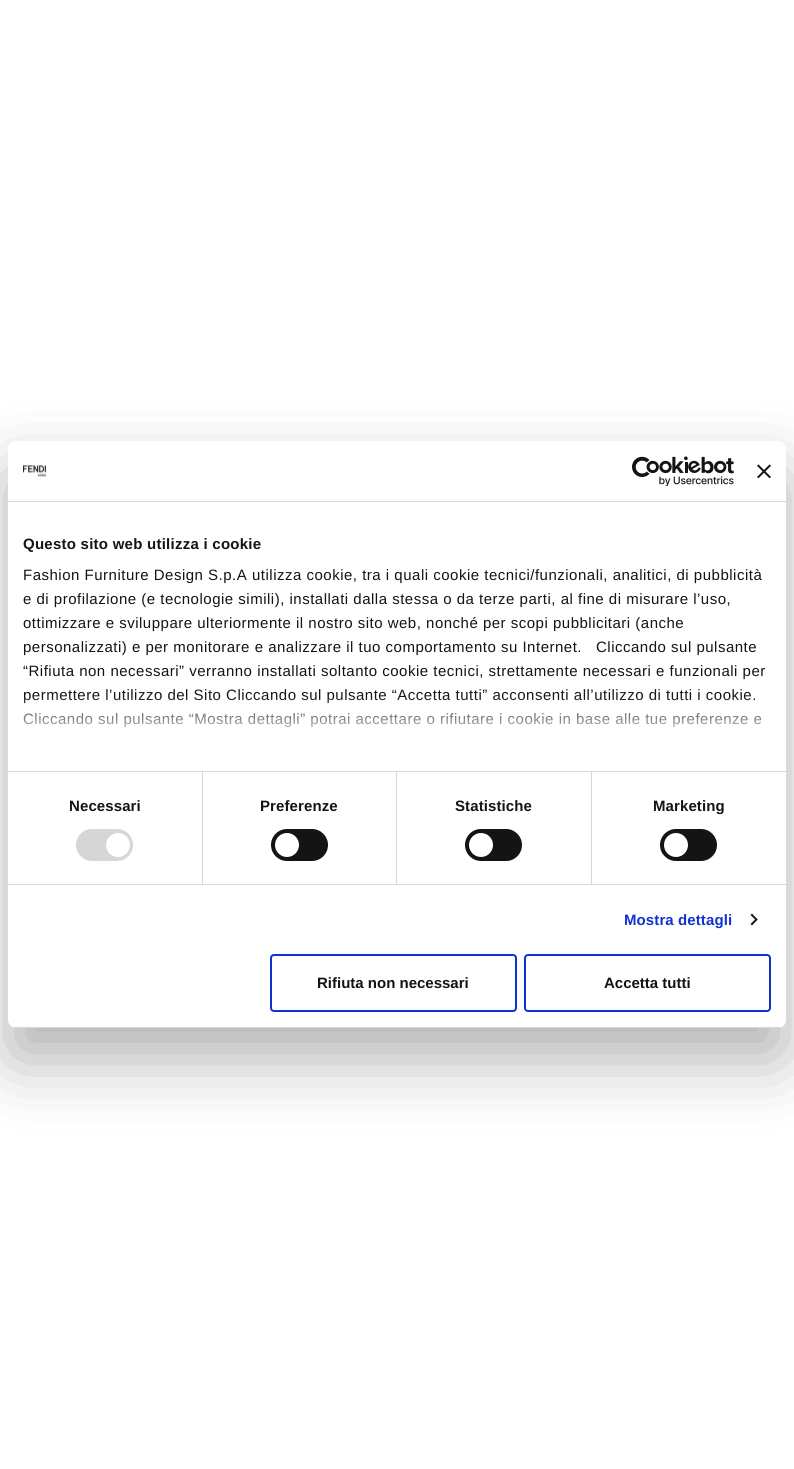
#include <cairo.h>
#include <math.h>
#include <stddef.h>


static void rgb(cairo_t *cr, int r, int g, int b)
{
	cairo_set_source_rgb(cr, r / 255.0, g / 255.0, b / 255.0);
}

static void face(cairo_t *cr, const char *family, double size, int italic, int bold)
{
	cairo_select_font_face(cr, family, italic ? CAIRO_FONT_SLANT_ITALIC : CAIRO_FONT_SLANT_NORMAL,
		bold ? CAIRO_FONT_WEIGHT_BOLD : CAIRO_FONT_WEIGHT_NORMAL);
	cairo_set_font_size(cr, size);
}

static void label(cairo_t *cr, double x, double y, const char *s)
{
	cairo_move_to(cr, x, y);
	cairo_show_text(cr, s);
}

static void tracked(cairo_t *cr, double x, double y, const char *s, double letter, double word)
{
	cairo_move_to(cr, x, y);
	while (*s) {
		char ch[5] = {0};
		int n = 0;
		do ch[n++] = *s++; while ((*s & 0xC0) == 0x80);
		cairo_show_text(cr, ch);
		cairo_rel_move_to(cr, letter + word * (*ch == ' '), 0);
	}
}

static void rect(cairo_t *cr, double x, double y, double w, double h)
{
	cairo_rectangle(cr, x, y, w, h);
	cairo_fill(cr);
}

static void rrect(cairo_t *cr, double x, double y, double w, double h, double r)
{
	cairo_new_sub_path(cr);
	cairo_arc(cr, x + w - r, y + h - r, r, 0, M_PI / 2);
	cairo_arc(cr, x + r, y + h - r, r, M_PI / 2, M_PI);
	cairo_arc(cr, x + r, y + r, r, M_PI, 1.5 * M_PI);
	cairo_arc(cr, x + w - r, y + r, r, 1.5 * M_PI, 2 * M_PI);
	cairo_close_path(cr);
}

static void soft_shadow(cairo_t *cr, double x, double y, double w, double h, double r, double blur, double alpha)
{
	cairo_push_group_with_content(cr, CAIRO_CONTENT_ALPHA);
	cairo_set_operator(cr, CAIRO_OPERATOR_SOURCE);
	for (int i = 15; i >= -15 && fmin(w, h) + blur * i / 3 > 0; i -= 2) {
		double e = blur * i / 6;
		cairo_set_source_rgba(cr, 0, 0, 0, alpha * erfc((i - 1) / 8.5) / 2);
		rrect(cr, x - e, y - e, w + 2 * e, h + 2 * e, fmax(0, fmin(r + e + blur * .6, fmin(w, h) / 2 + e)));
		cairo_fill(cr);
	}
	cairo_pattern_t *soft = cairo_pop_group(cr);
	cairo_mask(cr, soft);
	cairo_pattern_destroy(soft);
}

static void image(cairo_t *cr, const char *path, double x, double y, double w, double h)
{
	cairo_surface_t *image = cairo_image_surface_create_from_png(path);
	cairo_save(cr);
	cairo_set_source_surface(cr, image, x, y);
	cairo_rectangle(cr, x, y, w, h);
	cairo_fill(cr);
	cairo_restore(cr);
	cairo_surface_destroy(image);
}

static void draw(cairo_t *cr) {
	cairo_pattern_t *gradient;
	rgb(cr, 255, 255, 255);
	cairo_paint(cr);
	rgb(cr, 0, 0, 0);
	soft_shadow(cr, 8, 473, 778, 587, 8, 34, 0.3);
	rgb(cr, 255, 255, 255);
	rrect(cr, 8, 441, 778, 587, 8);
	cairo_fill(cr);
	rgb(cr, 214, 214, 214);
	rect(cr, 8, 501, 778, 1);
	image(cr, "image0.png", 23, 465, 23, 12);
	image(cr, "image1.png", 632, 456, 102, 30);
	image(cr, "image2.png", 757, 464, 14, 14);
	rect(cr, 8, 771, 778, 1);
	face(cr, "Liberation Sans", 15, 0, 1);
	rgb(cr, 20, 20, 20);
	tracked(cr, 23, 549, "Questo sito web utilizza i cookie", 0.25, 0);
	face(cr, "Liberation Sans", 15, 0, 0);
	tracked(cr, 23, 580, "Fashion Furniture Design S.p.A utilizza cookie, tra i quali cookie tecnici/funzionali, analitici, di pubblicità", 0.5, 0);
	tracked(cr, 23, 604, "e di profilazione (e tecnologie simili), installati dalla stessa o da terze parti, al fine di misurare l’uso,", 0.5, 0);
	tracked(cr, 23, 628, "ottimizzare e sviluppare ulteriormente il nostro sito web, nonché per scopi pubblicitari (anche", 0.5, 0);
	tracked(cr, 23, 652, "personalizzati) e per monitorare e analizzare il tuo comportamento su Internet.   Cliccando sul pulsante", 0.5, 0);
	tracked(cr, 23, 676, "“Rifiuta non necessari” verranno installati soltanto cookie tecnici, strettamente necessari e funzionali per", 0.5, 0);
	tracked(cr, 23, 700, "permettere l’utilizzo del Sito Cliccando sul pulsante “Accetta tutti” acconsenti all’utilizzo di tutti i cookie.", 0.5, 0);
	tracked(cr, 23, 724, "Cliccando sul pulsante “Mostra dettagli” potrai accettare o rifiutare i cookie in base alle tue preferenze e", 0.5, 0);
	gradient = cairo_pattern_create_linear(391, 771, 391, 696);
	cairo_pattern_add_color_stop_rgba(gradient, 0, 1, 1, 1, 1);
	cairo_pattern_add_color_stop_rgba(gradient, 0.5, 1, 1, 1, 0.8);
	cairo_pattern_add_color_stop_rgba(gradient, 1, 1, 1, 1, 0);
	cairo_set_source(cr, gradient);
	cairo_pattern_destroy(gradient);
	rect(cr, 23, 697, 739, 31);
	rgb(cr, 214, 214, 214);
	rect(cr, 8, 884, 778, 1);
	rect(cr, 202, 772, 1, 112);
	face(cr, "Liberation Sans", 15, 0, 1);
	rgb(cr, 20, 20, 20);
	tracked(cr, 69, 811, "Necessari", 0.1, 0);
	rgb(cr, 214, 214, 214);
	rrect(cr, 76, 829, 57, 32, 16);
	cairo_fill(cr);
	rgb(cr, 255, 255, 255);
	cairo_arc(cr, 118, 845, 12, 0, 2 * M_PI);
	cairo_fill(cr);
	rgb(cr, 214, 214, 214);
	rect(cr, 396, 772, 1, 112);
	rgb(cr, 20, 20, 20);
	tracked(cr, 260, 811, "Preferenze", 0.1, 0);
	rrect(cr, 271, 829, 57, 32, 16);
	cairo_fill(cr);
	rgb(cr, 255, 255, 255);
	cairo_arc(cr, 287, 845, 12, 0, 2 * M_PI);
	cairo_fill(cr);
	rgb(cr, 214, 214, 214);
	rect(cr, 591, 772, 1, 112);
	rgb(cr, 20, 20, 20);
	tracked(cr, 455, 811, "Statistiche", 0.1, 0);
	rrect(cr, 465, 829, 57, 32, 16);
	cairo_fill(cr);
	rgb(cr, 255, 255, 255);
	cairo_arc(cr, 481, 845, 12, 0, 2 * M_PI);
	cairo_fill(cr);
	rgb(cr, 20, 20, 20);
	tracked(cr, 653, 811, "Marketing", 0.1, 0);
	rrect(cr, 660, 829, 57, 32, 16);
	cairo_fill(cr);
	rgb(cr, 255, 255, 255);
	cairo_arc(cr, 676, 845, 12, 0, 2 * M_PI);
	cairo_fill(cr);
	rgb(cr, 16, 50, 207);
	tracked(cr, 624, 925, "Mostra dettagli", 0.1, 0);
	rgb(cr, 20, 20, 20);
	cairo_new_path(cr);
	cairo_move_to(cr, 752, 913.5);
	cairo_line_to(cr, 757.5, 919.5);
	cairo_line_to(cr, 756.5, 921);
	cairo_line_to(cr, 750.5, 915);
	cairo_close_path(cr);
	cairo_fill(cr);
	cairo_new_path(cr);
	cairo_move_to(cr, 756.5, 918);
	cairo_line_to(cr, 757.5, 919.5);
	cairo_line_to(cr, 752, 925.5);
	cairo_line_to(cr, 750.5, 924);
	cairo_close_path(cr);
	cairo_fill(cr);
	cairo_save(cr);
	rrect(cr, 8, 441, 778, 587, 8);
	cairo_clip(cr);
	rgb(cr, 214, 214, 214);
	rect(cr, 8, 1027, 778, 1);
	cairo_restore(cr);
	rrect(cr, 271, 955, 245, 56, 3);
	rgb(cr, 16, 50, 207);
	cairo_stroke(cr);
	rgb(cr, 20, 20, 20);
	label(cr, 317, 988, "Rifiuta non necessari");
	rrect(cr, 525, 955, 245, 56, 3);
	rgb(cr, 16, 50, 207);
	cairo_stroke(cr);
	rgb(cr, 20, 20, 20);
	label(cr, 604, 988, "Accetta tutti");
}

int main(void) {
	cairo_surface_t *surface = cairo_image_surface_create(CAIRO_FORMAT_RGB24, 794, 1469);
	cairo_t *cr = cairo_create(surface);
	cairo_font_options_t *options = cairo_font_options_create();
	cairo_font_options_set_hint_metrics(options, CAIRO_HINT_METRICS_OFF);
	cairo_font_options_set_hint_style(options, CAIRO_HINT_STYLE_NONE);
	cairo_set_font_options(cr, options);
	cairo_set_miter_limit(cr, 4);
	draw(cr);
	cairo_surface_write_to_png(surface, "render.png");
	cairo_font_options_destroy(options);
	cairo_destroy(cr);
	cairo_surface_destroy(surface);
	return 0;
}
